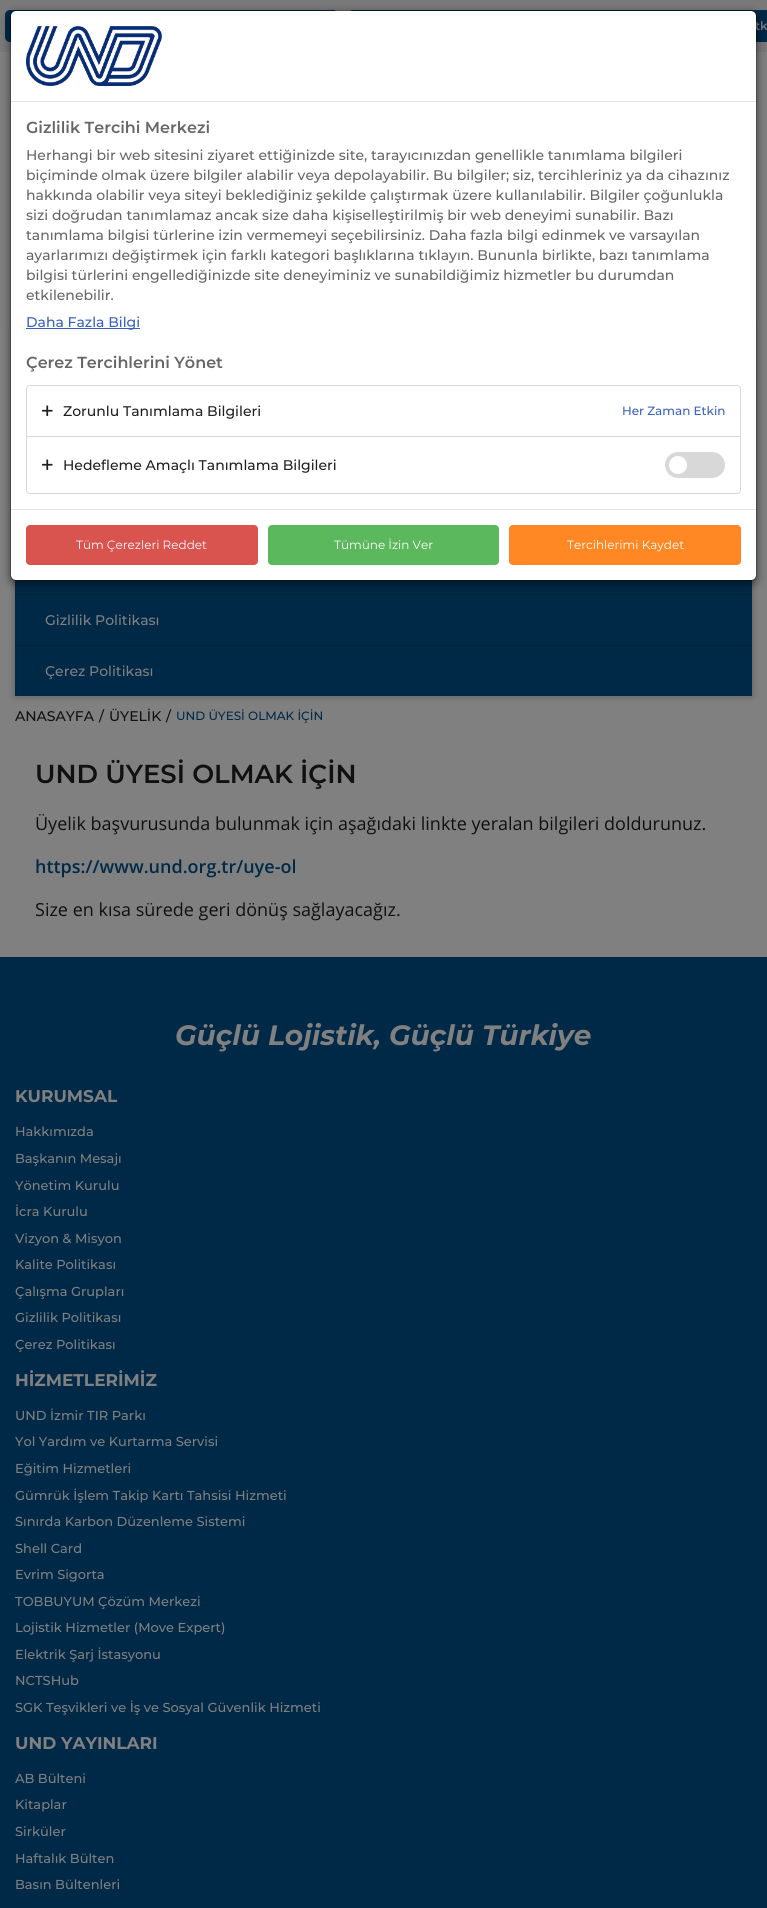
#include <cairo.h>
#include <math.h>
#include <stddef.h>


static void rgb(cairo_t *cr, int r, int g, int b)
{
	cairo_set_source_rgb(cr, r / 255.0, g / 255.0, b / 255.0);
}

static void face(cairo_t *cr, const char *family, double size, int italic, int bold)
{
	cairo_select_font_face(cr, family, italic ? CAIRO_FONT_SLANT_ITALIC : CAIRO_FONT_SLANT_NORMAL,
		bold ? CAIRO_FONT_WEIGHT_BOLD : CAIRO_FONT_WEIGHT_NORMAL);
	cairo_set_font_size(cr, size);
}

static void label(cairo_t *cr, double x, double y, const char *s)
{
	cairo_move_to(cr, x, y);
	cairo_show_text(cr, s);
}

static void rect(cairo_t *cr, double x, double y, double w, double h)
{
	cairo_rectangle(cr, x, y, w, h);
	cairo_fill(cr);
}

static void rrect(cairo_t *cr, double x, double y, double w, double h, double r)
{
	cairo_new_sub_path(cr);
	cairo_arc(cr, x + w - r, y + h - r, r, 0, M_PI / 2);
	cairo_arc(cr, x + r, y + h - r, r, M_PI / 2, M_PI);
	cairo_arc(cr, x + r, y + r, r, M_PI, 1.5 * M_PI);
	cairo_arc(cr, x + w - r, y + r, r, 1.5 * M_PI, 2 * M_PI);
	cairo_close_path(cr);
}

static void soft_shadow(cairo_t *cr, double x, double y, double w, double h, double r, double blur, double alpha)
{
	cairo_push_group_with_content(cr, CAIRO_CONTENT_ALPHA);
	cairo_set_operator(cr, CAIRO_OPERATOR_SOURCE);
	for (int i = 15; i >= -15 && fmin(w, h) + blur * i / 3 > 0; i -= 2) {
		double e = blur * i / 6;
		cairo_set_source_rgba(cr, 0, 0, 0, alpha * erfc((i - 1) / 8.5) / 2);
		rrect(cr, x - e, y - e, w + 2 * e, h + 2 * e, fmax(0, fmin(r + e + blur * .6, fmin(w, h) / 2 + e)));
		cairo_fill(cr);
	}
	cairo_pattern_t *soft = cairo_pop_group(cr);
	cairo_mask(cr, soft);
	cairo_pattern_destroy(soft);
}

static void image(cairo_t *cr, const char *path, double x, double y, double w, double h)
{
	cairo_surface_t *image = cairo_image_surface_create_from_png(path);
	cairo_save(cr);
	cairo_set_source_surface(cr, image, x, y);
	cairo_rectangle(cr, x, y, w, h);
	cairo_fill(cr);
	cairo_restore(cr);
	cairo_surface_destroy(image);
}

static void draw(cairo_t *cr) {
	rgb(cr, 128, 128, 128);
	cairo_paint(cr);
	rgb(cr, 121, 121, 122);
	rect(cr, 0, 0, 767, 52);
	rgb(cr, 0, 41, 71);
	rrect(cr, 5, 10, 333, 32, 5);
	cairo_fill(cr);
	cairo_new_path(cr);
	cairo_move_to(cr, 353, 10);
	cairo_line_to(cr, 767, 10);
	cairo_line_to(cr, 767, 42);
	cairo_line_to(cr, 353, 42);
	cairo_curve_to(cr, 350, 42, 348, 40, 348, 37);
	cairo_line_to(cr, 348, 15);
	cairo_curve_to(cr, 348, 12, 350, 10, 353, 10);
	cairo_close_path(cr);
	cairo_fill(cr);
	face(cr, "Montserrat SemiBold", 12, 0, 0);
	rgb(cr, 128, 128, 128);
	label(cr, 755, 30, "tk");
	rgb(cr, 0, 0, 0);
	soft_shadow(cr, 15, 325, 737, 371, 0, 3.5, 0.3);
	rgb(cr, 0, 41, 71);
	rect(cr, 15, 579, 737, 117);
	rgb(cr, 0, 32, 56);
	rect(cr, 15, 594, 737, 1);
	rgb(cr, 0, 0, 0);
	soft_shadow(cr, 10, 13, 747, 571, 6, 4.5, 0.5);
	rgb(cr, 255, 255, 255);
	rrect(cr, 11, 11, 745, 569, 5);
	cairo_fill(cr);
	rrect(cr, 10.5, 10.5, 746, 570, 5.5);
	cairo_set_source_rgba(cr, 0, 0, 0, 0.2);
	cairo_set_line_width(cr, 1);
	cairo_stroke(cr);
	rgb(cr, 229, 229, 229);
	rect(cr, 11, 101, 745, 1);
	image(cr, "image0.png", 26, 26, 136, 60);
	face(cr, "Montserrat SemiBold", 16, 0, 0);
	rgb(cr, 102, 102, 102);
	label(cr, 26, 133, "Gizlilik Tercihi Merkezi");
	face(cr, "Montserrat Medium", 14, 0, 0);
	label(cr, 26, 160, "Herhangi bir web sitesini ziyaret ettiğinizde site, tarayıcınızdan genellikle tanımlama bilgileri");
	label(cr, 26, 180, "biçiminde olmak üzere bilgiler alabilir veya depolayabilir. Bu bilgiler; siz, tercihleriniz ya da cihazınız");
	label(cr, 26, 200, "hakkında olabilir veya siteyi beklediğiniz şekilde çalıştırmak üzere kullanılabilir. Bilgiler çoğunlukla");
	label(cr, 26, 220, "sizi doğrudan tanımlamaz ancak size daha kişiselleştirilmiş bir web deneyimi sunabilir. Bazı");
	label(cr, 26, 240, "tanımlama bilgisi türlerine izin vermemeyi seçebilirsiniz. Daha fazla bilgi edinmek ve varsayılan");
	label(cr, 26, 260, "ayarlarımızı değiştirmek için farklı kategori başlıklarına tıklayın. Bununla birlikte, bazı tanımlama");
	label(cr, 26, 280, "bilgisi türlerini engellediğinizde site deneyiminiz ve sunabildiğimiz hizmetler bu durumdan");
	label(cr, 26, 300, "etkilenebilir.");
	rgb(cr, 56, 96, 190);
	rect(cr, 26, 328, 114, 1);
	label(cr, 26, 327, "Daha Fazla Bilgi");
	face(cr, "Montserrat SemiBold", 16, 0, 0);
	rgb(cr, 102, 102, 102);
	label(cr, 26, 368, "Çerez Tercihlerini Yönet");
	rrect(cr, 26.5, 385.5, 714, 108, 3.5);
	rgb(cr, 216, 216, 216);
	cairo_stroke(cr);
	image(cr, "image1.png", 42, 405, 11, 11);
	face(cr, "Montserrat Medium", 14, 0, 0);
	rgb(cr, 32, 32, 32);
	label(cr, 63, 416, "Zorunlu Tanımlama Bilgileri");
	face(cr, "Montserrat Medium", 12, 0, 0);
	rgb(cr, 56, 96, 190);
	label(cr, 622, 415, "Her Zaman Etkin");
	rgb(cr, 216, 216, 216);
	rect(cr, 27, 436, 713, 1);
	image(cr, "image1.png", 42, 459, 11, 11);
	face(cr, "Montserrat Medium", 14, 0, 0);
	rgb(cr, 32, 32, 32);
	label(cr, 63, 470, "Hedefleme Amaçlı Tanımlama Bilgileri");
	rgb(cr, 216, 216, 216);
	rrect(cr, 665, 452, 60, 26, 13);
	cairo_fill(cr);
	rgb(cr, 255, 255, 255);
	cairo_arc(cr, 678, 465, 9, 0, 2 * M_PI);
	cairo_fill(cr);
	rgb(cr, 229, 229, 229);
	rect(cr, 11, 509, 745, 1);
	rgb(cr, 217, 83, 79);
	rrect(cr, 26, 525, 232, 40, 4);
	cairo_fill(cr);
	face(cr, "Montserrat", 12, 0, 0);
	rgb(cr, 255, 255, 255);
	label(cr, 76, 549, "Tüm Çerezleri Reddet");
	rgb(cr, 92, 184, 92);
	rrect(cr, 268, 525, 231, 40, 4);
	cairo_fill(cr);
	rgb(cr, 255, 255, 255);
	label(cr, 334, 549, "Tümüne İzin Ver");
	rgb(cr, 255, 135, 36);
	rrect(cr, 509, 525, 232, 40, 4);
	cairo_fill(cr);
	rgb(cr, 255, 255, 255);
	label(cr, 567, 549, "Tercihlerimi Kaydet");
	rgb(cr, 0, 32, 56);
	rect(cr, 15, 645, 737, 1);
	face(cr, "Montserrat Medium", 14, 0, 0);
	rgb(cr, 128, 128, 128);
	label(cr, 45, 625, "Gizlilik Politikası");
	label(cr, 45, 676, "Çerez Politikası");
	rgb(cr, 16, 16, 16);
	label(cr, 15, 721, "ANASAYFA");
	label(cr, 99, 721, "/");
	label(cr, 109, 721, "ÜYELİK");
	label(cr, 166, 721, "/");
	face(cr, "Montserrat Medium", 12, 0, 0);
	rgb(cr, 0, 41, 71);
	label(cr, 176, 720, "UND ÜYESİ OLMAK İÇİN");
	face(cr, "Montserrat SemiBold", 26, 0, 0);
	rgb(cr, 16, 16, 16);
	label(cr, 35, 783, "UND ÜYESİ OLMAK İÇİN");
	face(cr, "Open Sans", 18, 0, 0);
	label(cr, 35, 830, "Üyelik başvurusunda bulunmak için aşağıdaki linkte yeralan bilgileri doldurunuz.");
	face(cr, "Open Sans SemiBold", 18, 0, 0);
	rgb(cr, 0, 41, 71);
	label(cr, 35, 873, "https://www.und.org.tr/uye-ol");
	face(cr, "Open Sans", 18, 0, 0);
	rgb(cr, 16, 16, 16);
	label(cr, 35, 916, "Size en kısa sürede geri dönüş sağlayacağız.");
	rgb(cr, 0, 41, 71);
	rect(cr, 0, 957, 767, 951);
	face(cr, "Montserrat", 28, 1, 1);
	rgb(cr, 128, 128, 128);
	label(cr, 175, 1045, "Güçlü Lojistik, Güçlü Türkiye");
	face(cr, "Montserrat", 17, 0, 1);
	label(cr, 15, 1102, "KURUMSAL");
	face(cr, "Montserrat Medium", 13, 0, 0);
	label(cr, 15, 1136, "Hakkımızda");
	label(cr, 15, 1163, "Başkanın Mesajı");
	label(cr, 15, 1190, "Yönetim Kurulu");
	label(cr, 15, 1216, "İcra Kurulu");
	label(cr, 15, 1243, "Vizyon & Misyon");
	label(cr, 15, 1269, "Kalite Politikası");
	label(cr, 15, 1296, "Çalışma Grupları");
	label(cr, 15, 1322, "Gizlilik Politikası");
	label(cr, 15, 1349, "Çerez Politikası");
	face(cr, "Montserrat", 17, 0, 1);
	label(cr, 15, 1386, "HİZMETLERİMİZ");
	face(cr, "Montserrat Medium", 13, 0, 0);
	label(cr, 15, 1420, "UND İzmir TIR Parkı");
	label(cr, 15, 1446, "Yol Yardım ve Kurtarma Servisi");
	label(cr, 15, 1473, "Eğitim Hizmetleri");
	label(cr, 15, 1500, "Gümrük İşlem Takip Kartı Tahsisi Hizmeti");
	label(cr, 15, 1526, "Sınırda Karbon Düzenleme Sistemi");
	label(cr, 15, 1553, "Shell Card");
	label(cr, 15, 1579, "Evrim Sigorta");
	label(cr, 15, 1606, "TOBBUYUM Çözüm Merkezi");
	label(cr, 15, 1632, "Lojistik Hizmetler (Move Expert)");
	label(cr, 15, 1659, "Elektrik Şarj İstasyonu");
	label(cr, 15, 1685, "NCTSHub");
	label(cr, 15, 1712, "SGK Teşvikleri ve İş ve Sosyal Güvenlik Hizmeti");
	face(cr, "Montserrat", 17, 0, 1);
	label(cr, 15, 1749, "UND YAYINLARI");
	face(cr, "Montserrat Medium", 13, 0, 0);
	label(cr, 15, 1783, "AB Bülteni");
	label(cr, 15, 1809, "Kitaplar");
	label(cr, 15, 1836, "Sirküler");
	label(cr, 15, 1863, "Haftalık Bülten");
	label(cr, 15, 1889, "Basın Bültenleri");
}

int main(void) {
	cairo_surface_t *surface = cairo_image_surface_create(CAIRO_FORMAT_RGB24, 767, 1908);
	cairo_t *cr = cairo_create(surface);
	cairo_font_options_t *options = cairo_font_options_create();
	cairo_font_options_set_hint_metrics(options, CAIRO_HINT_METRICS_OFF);
	cairo_font_options_set_hint_style(options, CAIRO_HINT_STYLE_NONE);
	cairo_set_font_options(cr, options);
	cairo_set_miter_limit(cr, 4);
	draw(cr);
	cairo_surface_write_to_png(surface, "render.png");
	cairo_font_options_destroy(options);
	cairo_destroy(cr);
	cairo_surface_destroy(surface);
	return 0;
}
